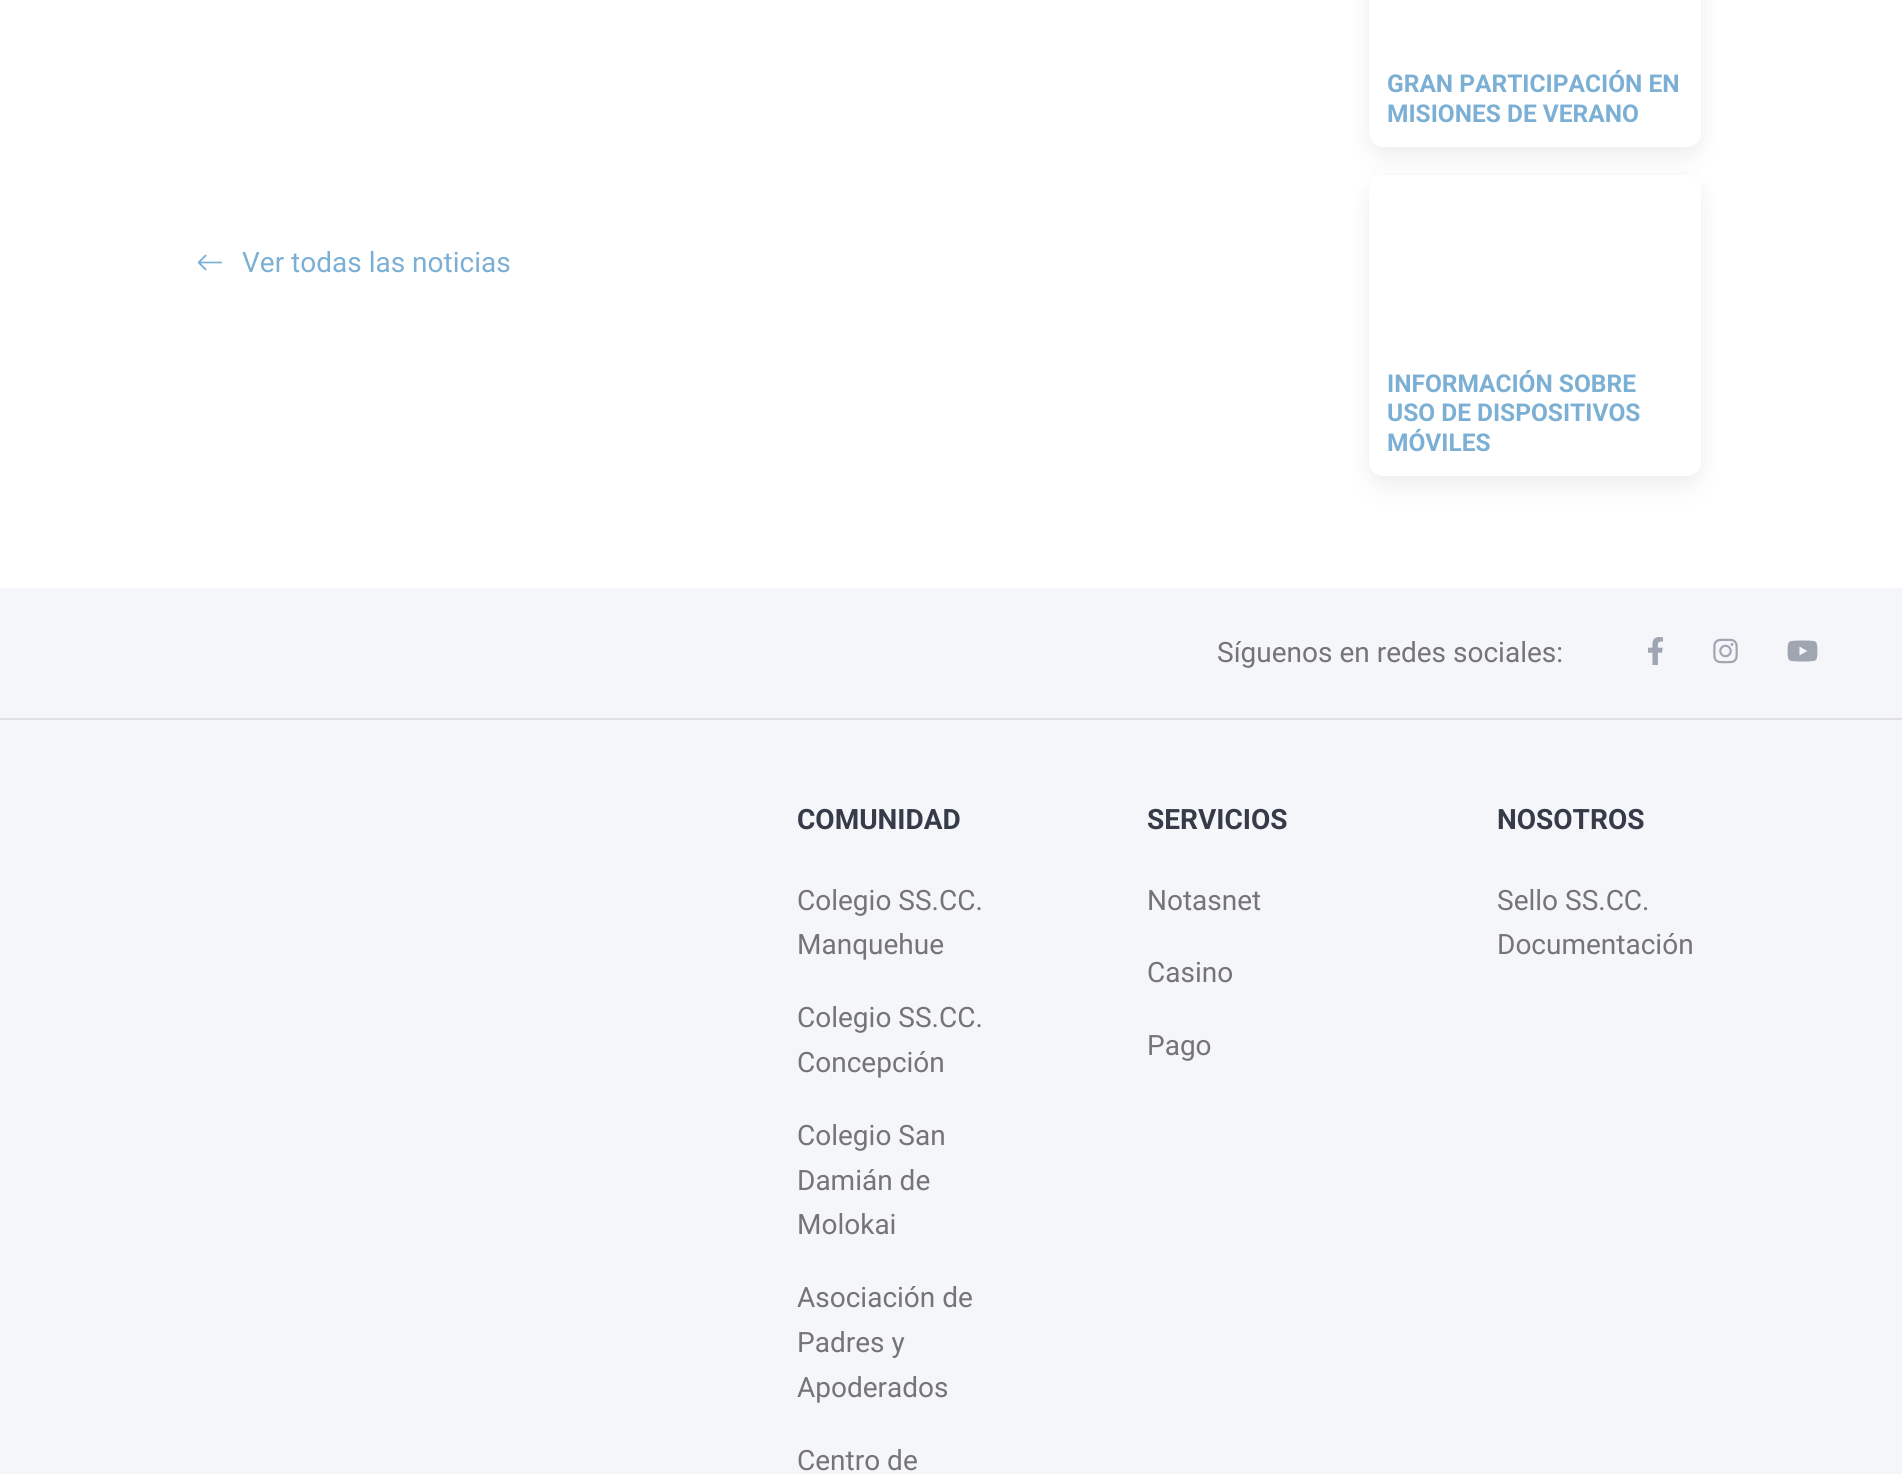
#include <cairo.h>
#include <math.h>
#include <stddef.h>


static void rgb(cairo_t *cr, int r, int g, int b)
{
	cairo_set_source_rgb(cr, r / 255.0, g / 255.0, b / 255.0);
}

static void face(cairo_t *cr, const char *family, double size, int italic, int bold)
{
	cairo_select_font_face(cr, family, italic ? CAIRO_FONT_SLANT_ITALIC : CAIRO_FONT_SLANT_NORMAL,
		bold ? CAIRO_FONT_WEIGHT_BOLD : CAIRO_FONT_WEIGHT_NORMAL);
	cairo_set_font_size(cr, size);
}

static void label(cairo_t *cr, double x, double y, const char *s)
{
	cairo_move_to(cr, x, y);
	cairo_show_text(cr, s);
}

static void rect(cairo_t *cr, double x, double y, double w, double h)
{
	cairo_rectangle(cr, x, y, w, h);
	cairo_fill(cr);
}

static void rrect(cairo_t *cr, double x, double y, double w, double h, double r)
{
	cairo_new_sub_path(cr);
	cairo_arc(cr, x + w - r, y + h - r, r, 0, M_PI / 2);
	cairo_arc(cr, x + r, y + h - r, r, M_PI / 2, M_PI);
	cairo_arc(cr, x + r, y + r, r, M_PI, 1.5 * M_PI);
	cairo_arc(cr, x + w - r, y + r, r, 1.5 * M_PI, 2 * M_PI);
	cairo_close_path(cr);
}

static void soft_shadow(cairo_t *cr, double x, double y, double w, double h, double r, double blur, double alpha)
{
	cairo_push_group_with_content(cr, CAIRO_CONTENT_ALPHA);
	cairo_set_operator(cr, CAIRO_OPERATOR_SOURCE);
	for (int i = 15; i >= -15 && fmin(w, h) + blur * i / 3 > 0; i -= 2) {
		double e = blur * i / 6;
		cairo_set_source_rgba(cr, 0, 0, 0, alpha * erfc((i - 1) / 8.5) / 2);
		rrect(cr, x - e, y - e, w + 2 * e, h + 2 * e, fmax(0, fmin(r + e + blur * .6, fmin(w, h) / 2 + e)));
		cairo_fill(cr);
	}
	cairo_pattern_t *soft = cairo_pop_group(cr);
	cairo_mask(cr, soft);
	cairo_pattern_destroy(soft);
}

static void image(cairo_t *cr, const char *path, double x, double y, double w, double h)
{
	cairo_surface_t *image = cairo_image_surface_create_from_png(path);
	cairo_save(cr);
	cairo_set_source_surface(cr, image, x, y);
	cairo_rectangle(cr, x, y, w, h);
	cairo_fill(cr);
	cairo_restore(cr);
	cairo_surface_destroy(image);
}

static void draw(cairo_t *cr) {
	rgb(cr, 255, 255, 255);
	cairo_paint(cr);
	image(cr, "image0.png", 197, 254, 26, 17);
	face(cr, "Roboto", 28, 0, 0);
	rgb(cr, 123, 175, 212);
	label(cr, 242, 272, "Ver todas las noticias");
	rgb(cr, 0, 0, 0);
	soft_shadow(cr, 1372, -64, 326, 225, 11, 17.5, 0.04);
	soft_shadow(cr, 1374, -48, 322, 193, 9, 13, 0.07);
	rgb(cr, 255, 255, 255);
	rrect(cr, 1369, -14, 332, 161, 14);
	cairo_fill(cr);
	face(cr, "Roboto", 24.5, 0, 1);
	rgb(cr, 123, 175, 212);
	label(cr, 1387, 92, "GRAN PARTICIPACIÓN EN");
	label(cr, 1387, 122, "MISIONES DE VERANO");
	rgb(cr, 0, 0, 0);
	soft_shadow(cr, 1372, 196, 326, 294, 11, 17.5, 0.04);
	soft_shadow(cr, 1374, 184, 322, 290, 9, 13, 0.07);
	rgb(cr, 255, 255, 255);
	rrect(cr, 1369, 175, 332, 301, 14);
	cairo_fill(cr);
	rgb(cr, 123, 175, 212);
	label(cr, 1387, 392, "INFORMACIÓN SOBRE");
	label(cr, 1387, 421, "USO DE DISPOSITIVOS");
	label(cr, 1387, 451, "MÓVILES");
	rgb(cr, 245, 246, 250);
	rect(cr, 0, 588, 1902, 886);
	rgb(cr, 224, 224, 224);
	rect(cr, 0, 718, 1902, 2);
	face(cr, "Roboto", 28, 0, 0);
	rgb(cr, 117, 117, 117);
	label(cr, 1217, 662, "Síguenos en redes sociales:");
	image(cr, "image1.png", 1648, 637, 15, 28);
	image(cr, "image2.png", 1713, 638, 25, 26);
	image(cr, "image3.png", 1787, 640, 31, 22);
	face(cr, "Roboto", 28, 0, 1);
	rgb(cr, 53, 59, 72);
	label(cr, 797, 829, "COMUNIDAD");
	face(cr, "Roboto", 28, 0, 0);
	rgb(cr, 117, 117, 117);
	label(cr, 797, 910, "Colegio SS.CC.");
	label(cr, 797, 954, "Manquehue");
	label(cr, 797, 1027, "Colegio SS.CC.");
	label(cr, 797, 1072, "Concepción");
	label(cr, 797, 1145, "Colegio San");
	label(cr, 797, 1190, "Damián de");
	label(cr, 797, 1234, "Molokai");
	label(cr, 797, 1307, "Asociación de");
	label(cr, 797, 1352, "Padres y");
	label(cr, 797, 1397, "Apoderados");
	label(cr, 797, 1470, "Centro de");
	face(cr, "Roboto", 28, 0, 1);
	rgb(cr, 53, 59, 72);
	label(cr, 1147, 829, "SERVICIOS");
	face(cr, "Roboto", 28, 0, 0);
	rgb(cr, 117, 117, 117);
	label(cr, 1147, 910, "Notasnet");
	label(cr, 1147, 982, "Casino");
	label(cr, 1147, 1055, "Pago");
	face(cr, "Roboto", 28, 0, 1);
	rgb(cr, 53, 59, 72);
	label(cr, 1497, 829, "NOSOTROS");
	face(cr, "Roboto", 28, 0, 0);
	rgb(cr, 117, 117, 117);
	label(cr, 1497, 910, "Sello SS.CC.");
	label(cr, 1497, 954, "Documentación");
}

int main(void) {
	cairo_surface_t *surface = cairo_image_surface_create(CAIRO_FORMAT_RGB24, 1902, 1474);
	cairo_t *cr = cairo_create(surface);
	cairo_font_options_t *options = cairo_font_options_create();
	cairo_font_options_set_hint_metrics(options, CAIRO_HINT_METRICS_OFF);
	cairo_font_options_set_hint_style(options, CAIRO_HINT_STYLE_NONE);
	cairo_set_font_options(cr, options);
	cairo_set_miter_limit(cr, 4);
	draw(cr);
	cairo_surface_write_to_png(surface, "render.png");
	cairo_font_options_destroy(options);
	cairo_destroy(cr);
	cairo_surface_destroy(surface);
	return 0;
}
